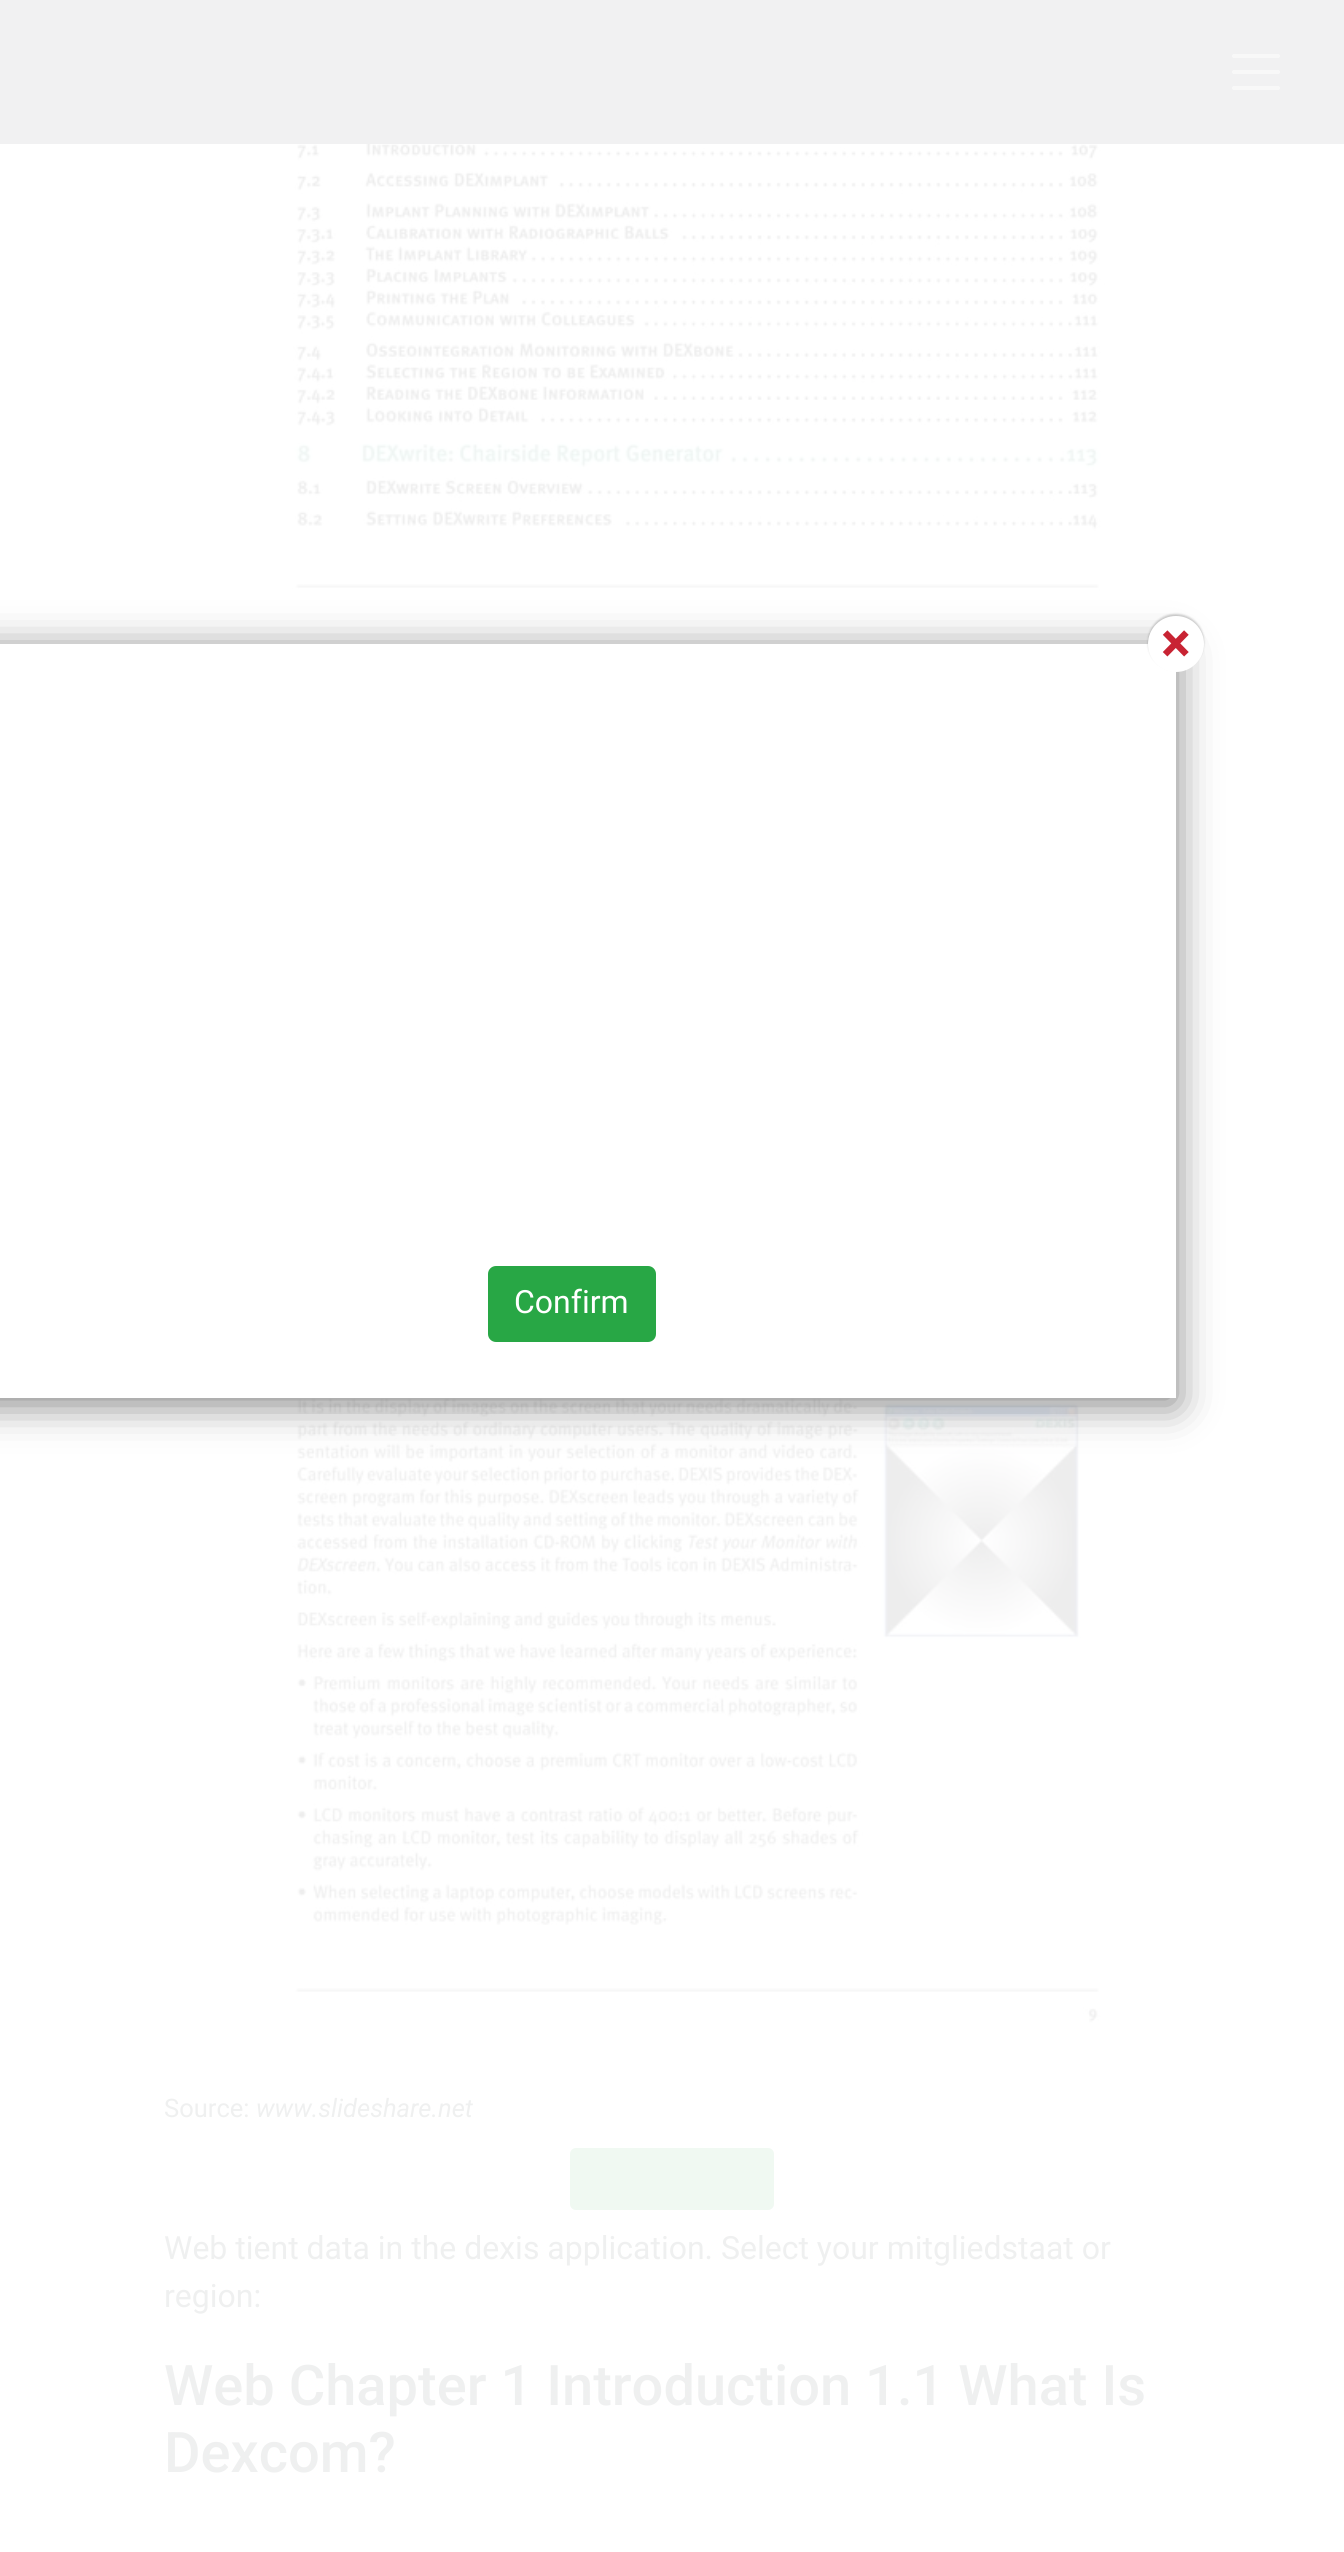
#include <cairo.h>
#include <math.h>
#include <stddef.h>


static void rgb(cairo_t *cr, int r, int g, int b)
{
	cairo_set_source_rgb(cr, r / 255.0, g / 255.0, b / 255.0);
}

static void face(cairo_t *cr, const char *family, double size, int italic, int bold)
{
	cairo_select_font_face(cr, family, italic ? CAIRO_FONT_SLANT_ITALIC : CAIRO_FONT_SLANT_NORMAL,
		bold ? CAIRO_FONT_WEIGHT_BOLD : CAIRO_FONT_WEIGHT_NORMAL);
	cairo_set_font_size(cr, size);
}

static void label(cairo_t *cr, double x, double y, const char *s)
{
	cairo_move_to(cr, x, y);
	cairo_show_text(cr, s);
}

static void rect(cairo_t *cr, double x, double y, double w, double h)
{
	cairo_rectangle(cr, x, y, w, h);
	cairo_fill(cr);
}

static void rrect(cairo_t *cr, double x, double y, double w, double h, double r)
{
	cairo_new_sub_path(cr);
	cairo_arc(cr, x + w - r, y + h - r, r, 0, M_PI / 2);
	cairo_arc(cr, x + r, y + h - r, r, M_PI / 2, M_PI);
	cairo_arc(cr, x + r, y + r, r, M_PI, 1.5 * M_PI);
	cairo_arc(cr, x + w - r, y + r, r, 1.5 * M_PI, 2 * M_PI);
	cairo_close_path(cr);
}

static void soft_shadow(cairo_t *cr, double x, double y, double w, double h, double r, double blur, double alpha)
{
	cairo_push_group_with_content(cr, CAIRO_CONTENT_ALPHA);
	cairo_set_operator(cr, CAIRO_OPERATOR_SOURCE);
	for (int i = 15; i >= -15 && fmin(w, h) + blur * i / 3 > 0; i -= 2) {
		double e = blur * i / 6;
		cairo_set_source_rgba(cr, 0, 0, 0, alpha * erfc((i - 1) / 8.5) / 2);
		rrect(cr, x - e, y - e, w + 2 * e, h + 2 * e, fmax(0, fmin(r + e + blur * .6, fmin(w, h) / 2 + e)));
		cairo_fill(cr);
	}
	cairo_pattern_t *soft = cairo_pop_group(cr);
	cairo_mask(cr, soft);
	cairo_pattern_destroy(soft);
}

static void image(cairo_t *cr, const char *path, double x, double y, double w, double h)
{
	cairo_surface_t *image = cairo_image_surface_create_from_png(path);
	cairo_save(cr);
	cairo_set_source_surface(cr, image, x, y);
	cairo_rectangle(cr, x, y, w, h);
	cairo_fill(cr);
	cairo_restore(cr);
	cairo_surface_destroy(image);
}

static void draw(cairo_t *cr) {
	rgb(cr, 255, 255, 255);
	cairo_paint(cr);
	rgb(cr, 241, 241, 242);
	rect(cr, 0, 0, 1344, 144);
	cairo_new_path(cr);
	cairo_move_to(cr, 1234, 56);
	cairo_line_to(cr, 1278, 56);
	cairo_move_to(cr, 1234, 72);
	cairo_line_to(cr, 1278, 72);
	cairo_move_to(cr, 1234, 88);
	cairo_line_to(cr, 1278, 88);
	rgb(cr, 248, 248, 248);
	cairo_set_line_width(cr, 4);
	cairo_set_line_cap(cr, CAIRO_LINE_CAP_ROUND);
	cairo_stroke(cr);
	image(cr, "image0.png", 291, 144, 814, 447);
	image(cr, "image1.png", 290, 1398, 811, 626);
	cairo_save(cr);
	cairo_set_fill_rule(cr, CAIRO_FILL_RULE_EVEN_ODD);
	cairo_new_path(cr);
	cairo_move_to(cr, 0, 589);
	cairo_line_to(cr, 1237, 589);
	cairo_line_to(cr, 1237, 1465);
	cairo_line_to(cr, 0, 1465);
	cairo_close_path(cr);
	cairo_move_to(cr, -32, 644);
	cairo_line_to(cr, 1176, 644);
	cairo_line_to(cr, 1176, 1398);
	cairo_line_to(cr, -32, 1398);
	cairo_close_path(cr);
	cairo_clip(cr);
	rgb(cr, 0, 0, 0);
	soft_shadow(cr, -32, 650, 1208, 754, 0, 20, 0.5);
	cairo_restore(cr);
	rgb(cr, 255, 255, 255);
	rrect(cr, -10, 644, 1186, 754, 10);
	cairo_fill(cr);
	rgb(cr, 0, 0, 0);
	soft_shadow(cr, 1148, 614, 56, 56, 28, 1, 0.2);
	rgb(cr, 255, 255, 255);
	cairo_arc(cr, 1176, 644, 28, 0, 2 * M_PI);
	cairo_fill(cr);
	face(cr, "Roboto", 56, 0, 1);
	rgb(cr, 200, 35, 51);
	label(cr, 1161, 662, "×");
	rgb(cr, 40, 167, 69);
	rrect(cr, 489, 1267, 166, 74, 7);
	cairo_fill_preserve(cr);
	cairo_set_line_width(cr, 2);
	cairo_set_line_cap(cr, CAIRO_LINE_CAP_BUTT);
	cairo_stroke(cr);
	face(cr, "Roboto", 32, 0, 0);
	rgb(cr, 255, 255, 255);
	label(cr, 514, 1313, "Confirm");
	face(cr, "Roboto", 25.5, 0, 0);
	rgb(cr, 239, 240, 240);
	label(cr, 164, 2117, "Source:");
	face(cr, "Roboto", 25.5, 1, 0);
	label(cr, 256, 2117, "www.slideshare.net");
	rgb(cr, 240, 249, 242);
	rrect(cr, 571, 2149, 202, 60, 5);
	cairo_fill_preserve(cr);
	cairo_stroke(cr);
	face(cr, "Roboto", 32, 0, 0);
	rgb(cr, 239, 240, 240);
	label(cr, 164, 2259, "Web tient data in the dexis application. Select your mitgliedstaat or");
	label(cr, 164, 2307, "region:");
	face(cr, "Roboto Medium", 56, 0, 0);
	label(cr, 164, 2405, "Web Chapter 1 Introduction 1.1 What Is");
	label(cr, 164, 2472, "Dexcom?");
}

int main(void) {
	cairo_surface_t *surface = cairo_image_surface_create(CAIRO_FORMAT_RGB24, 1344, 2552);
	cairo_t *cr = cairo_create(surface);
	cairo_font_options_t *options = cairo_font_options_create();
	cairo_font_options_set_hint_metrics(options, CAIRO_HINT_METRICS_OFF);
	cairo_font_options_set_hint_style(options, CAIRO_HINT_STYLE_NONE);
	cairo_set_font_options(cr, options);
	cairo_set_miter_limit(cr, 4);
	draw(cr);
	cairo_surface_write_to_png(surface, "render.png");
	cairo_font_options_destroy(options);
	cairo_destroy(cr);
	cairo_surface_destroy(surface);
	return 0;
}
